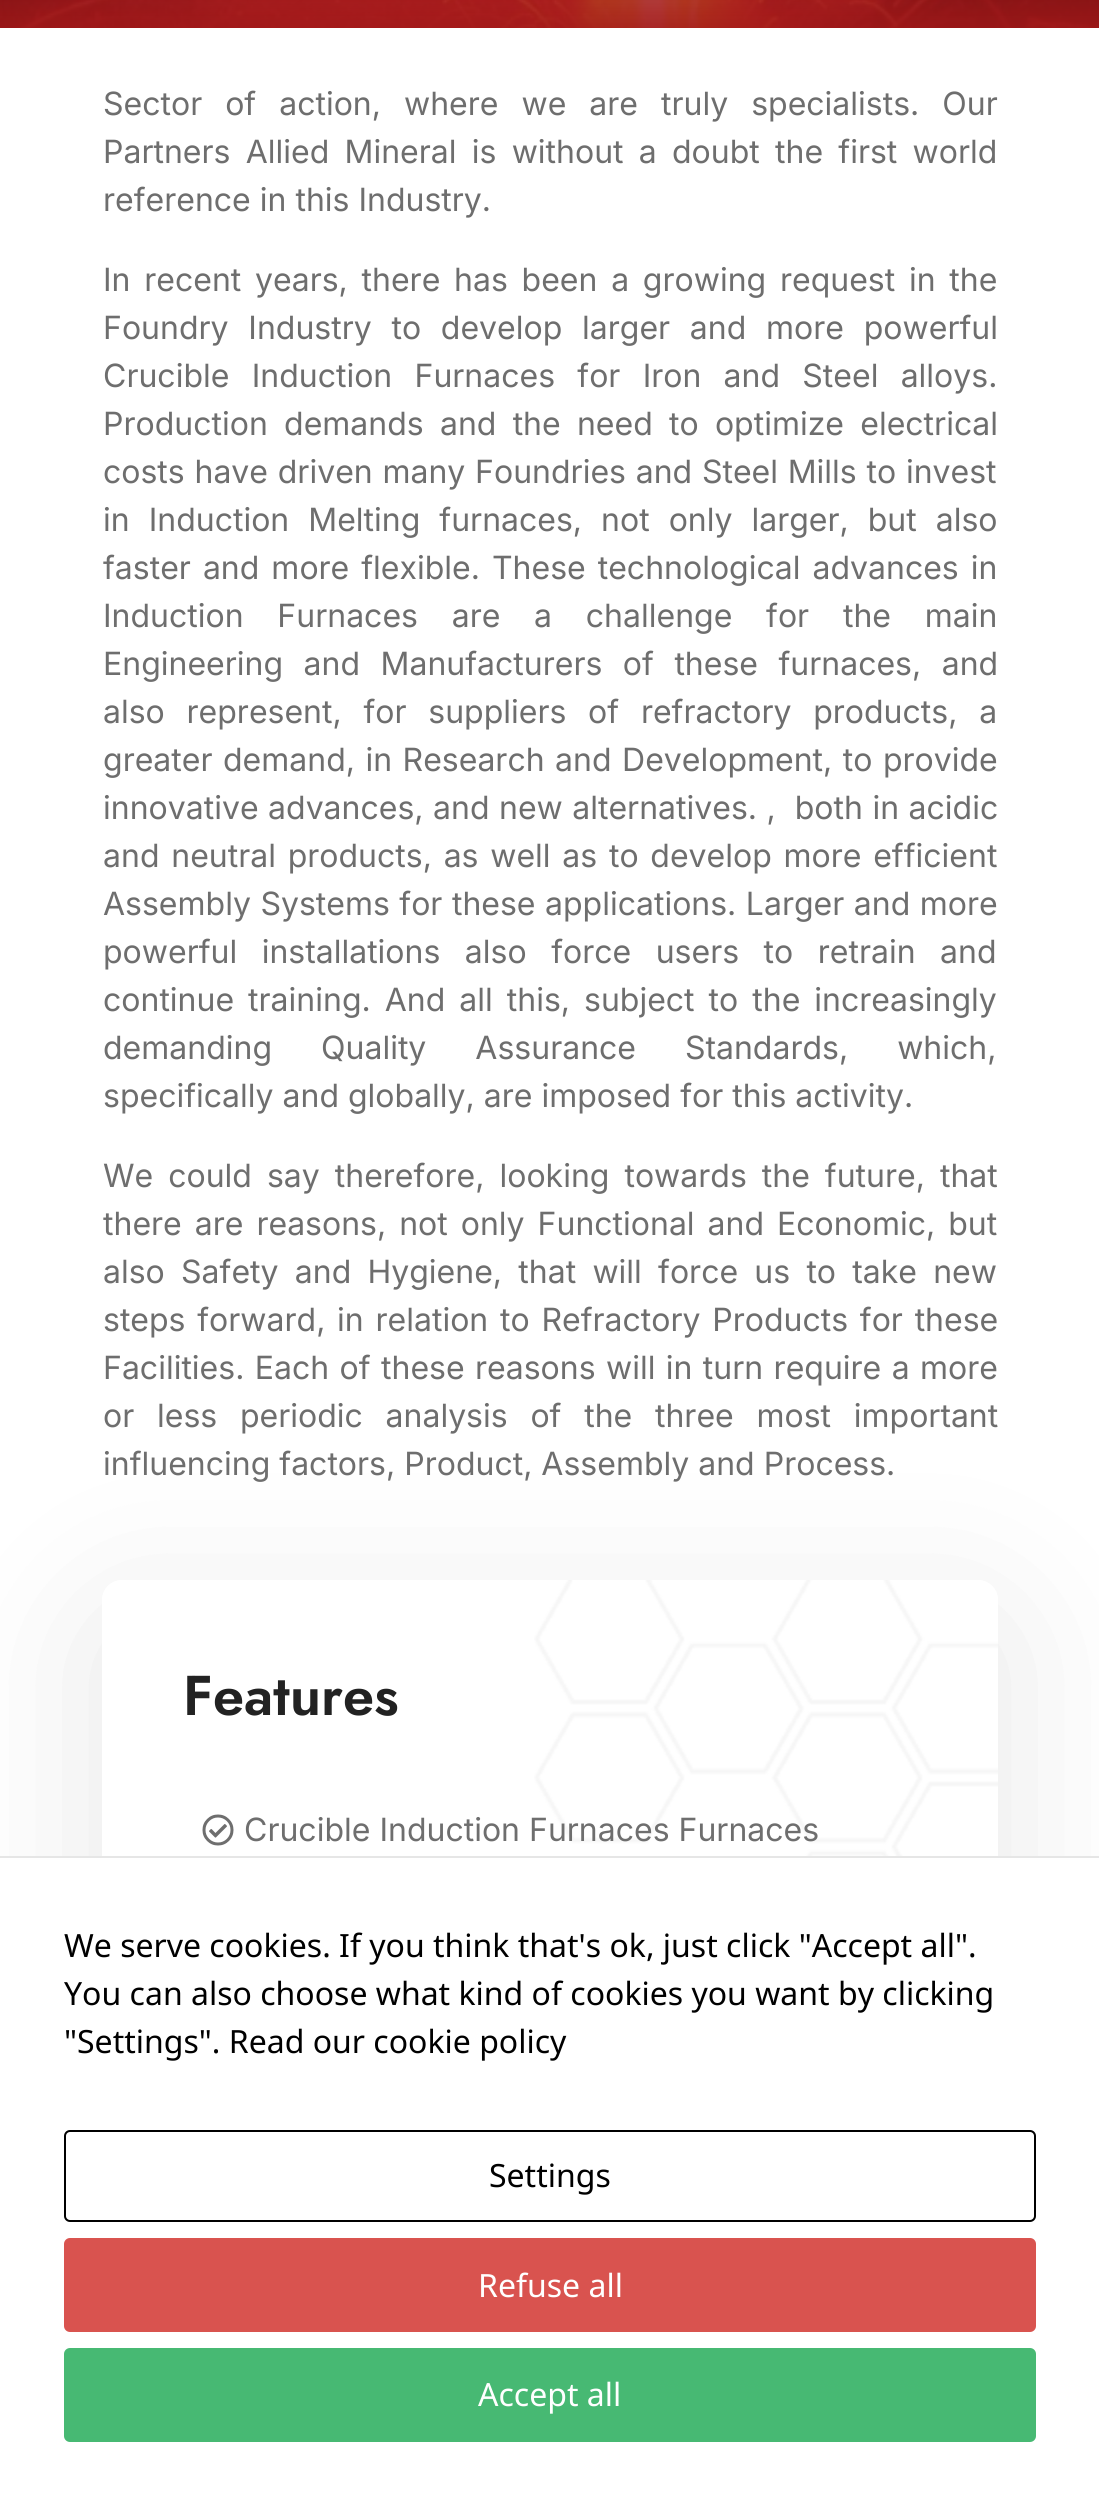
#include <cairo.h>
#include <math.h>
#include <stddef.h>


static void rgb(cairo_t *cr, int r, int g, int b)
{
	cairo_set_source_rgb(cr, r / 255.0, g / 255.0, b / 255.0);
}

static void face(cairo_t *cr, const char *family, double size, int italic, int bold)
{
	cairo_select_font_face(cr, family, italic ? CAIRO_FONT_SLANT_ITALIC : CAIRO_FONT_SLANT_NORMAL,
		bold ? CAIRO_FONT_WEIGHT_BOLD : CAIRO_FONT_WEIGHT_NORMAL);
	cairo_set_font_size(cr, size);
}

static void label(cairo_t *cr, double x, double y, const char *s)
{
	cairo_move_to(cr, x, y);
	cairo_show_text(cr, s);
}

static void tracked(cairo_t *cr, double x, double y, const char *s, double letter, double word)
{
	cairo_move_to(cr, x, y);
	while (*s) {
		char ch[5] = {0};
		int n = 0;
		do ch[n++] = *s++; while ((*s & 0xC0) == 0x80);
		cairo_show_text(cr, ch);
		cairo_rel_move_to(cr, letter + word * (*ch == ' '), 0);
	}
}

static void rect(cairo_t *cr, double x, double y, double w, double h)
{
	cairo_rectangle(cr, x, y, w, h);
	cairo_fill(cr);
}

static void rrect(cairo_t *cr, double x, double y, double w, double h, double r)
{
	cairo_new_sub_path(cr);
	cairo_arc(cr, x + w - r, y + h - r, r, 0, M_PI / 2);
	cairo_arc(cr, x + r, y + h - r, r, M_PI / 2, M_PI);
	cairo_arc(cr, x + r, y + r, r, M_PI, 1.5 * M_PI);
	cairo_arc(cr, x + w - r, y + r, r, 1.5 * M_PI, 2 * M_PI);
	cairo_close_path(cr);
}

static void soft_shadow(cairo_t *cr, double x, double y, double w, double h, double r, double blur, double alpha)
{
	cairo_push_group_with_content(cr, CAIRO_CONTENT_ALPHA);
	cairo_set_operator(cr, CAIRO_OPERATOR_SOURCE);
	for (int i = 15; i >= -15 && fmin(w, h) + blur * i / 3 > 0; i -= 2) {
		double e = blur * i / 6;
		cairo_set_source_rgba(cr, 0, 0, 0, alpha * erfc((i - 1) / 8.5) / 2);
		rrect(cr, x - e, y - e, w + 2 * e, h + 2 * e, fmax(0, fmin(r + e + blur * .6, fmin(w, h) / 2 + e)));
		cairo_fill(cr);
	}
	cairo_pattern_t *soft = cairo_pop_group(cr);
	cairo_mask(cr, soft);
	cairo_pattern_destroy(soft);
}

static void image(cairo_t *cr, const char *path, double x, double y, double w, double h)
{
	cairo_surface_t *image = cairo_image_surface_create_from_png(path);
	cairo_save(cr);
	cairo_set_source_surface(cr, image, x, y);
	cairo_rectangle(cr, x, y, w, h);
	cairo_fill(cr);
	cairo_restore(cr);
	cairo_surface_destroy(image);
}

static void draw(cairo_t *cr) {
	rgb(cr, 255, 255, 255);
	cairo_paint(cr);
	image(cr, "image0.png", 0, 0, 1099, 28);
	face(cr, "Inter", 32, 0, 0);
	rgb(cr, 110, 110, 110);
	tracked(cr, 103, 115, "Sector of action, where we are truly specialists. Our", 0, 14);
	tracked(cr, 103, 163, "Partners Allied Mineral is without a doubt the first world", 0, 6.25);
	label(cr, 103, 211, "reference in this Industry.");
	tracked(cr, 103, 291, "In recent years, there has been a growing request in the", 0, 4.75);
	tracked(cr, 103, 339, "Foundry Industry to develop larger and more powerful", 0, 10.75);
	tracked(cr, 103, 387, "Crucible Induction Furnaces for Iron and Steel alloys.", 0, 13.25);
	tracked(cr, 103, 435, "Production demands and the need to optimize electrical", 0, 7.25);
	tracked(cr, 103, 483, "costs have driven many Foundries and Steel Mills to invest", 0, 0.75);
	tracked(cr, 103, 531, "in Induction Melting furnaces, not only larger, but also", 0, 10);
	tracked(cr, 103, 579, "faster and more flexible. These technological advances in", 0, 3);
	tracked(cr, 103, 627, "Induction Furnaces are a challenge for the main", 0, 24.75);
	tracked(cr, 103, 675, "Engineering and Manufacturers of these furnaces, and", 0, 11.5);
	tracked(cr, 103, 723, "also represent, for suppliers of refractory products, a", 0, 12.75);
	tracked(cr, 103, 771, "greater demand, in Research and Development, to provide", 0, 1.5);
	tracked(cr, 103, 819, "innovative advances, and new alternatives. ,  both in acidic", 0, 0.5);
	tracked(cr, 103, 867, "and neutral products, as well as to develop more efficient", 0, 2.75);
	tracked(cr, 103, 915, "Assembly Systems for these applications. Larger and more", 0, 0.5);
	tracked(cr, 103, 963, "powerful installations also force users to retrain and", 0, 15.5);
	tracked(cr, 103, 1011, "continue training. And all this, subject to the increasingly", 0, 5);
	tracked(cr, 103, 1059, "demanding Quality Assurance Standards, which,", 0, 40);
	label(cr, 103, 1107, "specifically and globally, are imposed for this activity.");
	tracked(cr, 103, 1187, "We could say therefore, looking towards the future, that", 0, 6);
	tracked(cr, 103, 1235, "there are reasons, not only Functional and Economic, but", 0, 4);
	tracked(cr, 103, 1283, "also Safety and Hygiene, that will force us to take new", 0, 7.25);
	tracked(cr, 103, 1331, "steps forward, in relation to Refractory Products for these", 0, 2.75);
	tracked(cr, 103, 1379, "Facilities. Each of these reasons will in turn require a more", 0, 1.4);
	tracked(cr, 103, 1427, "or less periodic analysis of the three most important", 0, 13.75);
	label(cr, 103, 1475, "influencing factors, Product, Assembly and Process.");
	cairo_save(cr);
	cairo_set_fill_rule(cr, CAIRO_FILL_RULE_EVEN_ODD);
	cairo_new_path(cr);
	cairo_move_to(cr, 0, 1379);
	cairo_line_to(cr, 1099, 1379);
	cairo_line_to(cr, 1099, 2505);
	cairo_line_to(cr, 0, 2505);
	cairo_close_path(cr);
	cairo_move_to(cr, 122, 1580);
	cairo_line_to(cr, 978, 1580);
	cairo_curve_to(cr, 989, 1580, 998, 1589, 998, 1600);
	cairo_line_to(cr, 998, 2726);
	cairo_curve_to(cr, 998, 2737, 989, 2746, 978, 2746);
	cairo_line_to(cr, 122, 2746);
	cairo_curve_to(cr, 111, 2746, 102, 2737, 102, 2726);
	cairo_line_to(cr, 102, 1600);
	cairo_curve_to(cr, 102, 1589, 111, 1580, 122, 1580);
	cairo_close_path(cr);
	cairo_clip(cr);
	rgb(cr, 0, 0, 0);
	soft_shadow(cr, 102, 1620, 896, 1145, 20, 80, 0.1);
	cairo_restore(cr);
	image(cr, "image1.png", 534, 1580, 464, 276);
	face(cr, "Jost SemiBold", 56, 0, 0);
	rgb(cr, 34, 34, 34);
	label(cr, 183, 1715, "Features");
	image(cr, "image2.png", 202, 1814, 32, 32);
	face(cr, "Inter", 32, 0, 0);
	rgb(cr, 110, 110, 110);
	label(cr, 244, 1841, "Crucible Induction Furnaces Furnaces");
	rgb(cr, 255, 255, 255);
	rect(cr, 0, 1858, 1099, 647);
	rgb(cr, 230, 230, 230);
	rect(cr, 0, 1856, 1099, 2);
	face(cr, "Noto Sans", 32, 0, 0);
	rgb(cr, 0, 0, 0);
	label(cr, 64, 1957, "We serve cookies. If you think that's ok, just click \"Accept all\".");
	label(cr, 64, 2005, "You can also choose what kind of cookies you want by clicking");
	label(cr, 64, 2053, "\"Settings\". Read our cookie policy");
	rrect(cr, 65, 2131, 970, 90, 5);
	cairo_stroke(cr);
	label(cr, 489, 2187, "Settings");
	rgb(cr, 217, 83, 79);
	rrect(cr, 65, 2239, 970, 92, 5);
	cairo_fill_preserve(cr);
	cairo_stroke(cr);
	rgb(cr, 255, 255, 255);
	label(cr, 478, 2297, "Refuse all");
	rgb(cr, 71, 185, 115);
	rrect(cr, 65, 2349, 970, 92, 5);
	cairo_fill_preserve(cr);
	cairo_stroke(cr);
	rgb(cr, 255, 255, 255);
	label(cr, 478, 2406, "Accept all");
}

int main(void) {
	cairo_surface_t *surface = cairo_image_surface_create(CAIRO_FORMAT_RGB24, 1099, 2505);
	cairo_t *cr = cairo_create(surface);
	cairo_font_options_t *options = cairo_font_options_create();
	cairo_font_options_set_hint_metrics(options, CAIRO_HINT_METRICS_OFF);
	cairo_font_options_set_hint_style(options, CAIRO_HINT_STYLE_NONE);
	cairo_set_font_options(cr, options);
	cairo_set_miter_limit(cr, 4);
	draw(cr);
	cairo_surface_write_to_png(surface, "render.png");
	cairo_font_options_destroy(options);
	cairo_destroy(cr);
	cairo_surface_destroy(surface);
	return 0;
}
